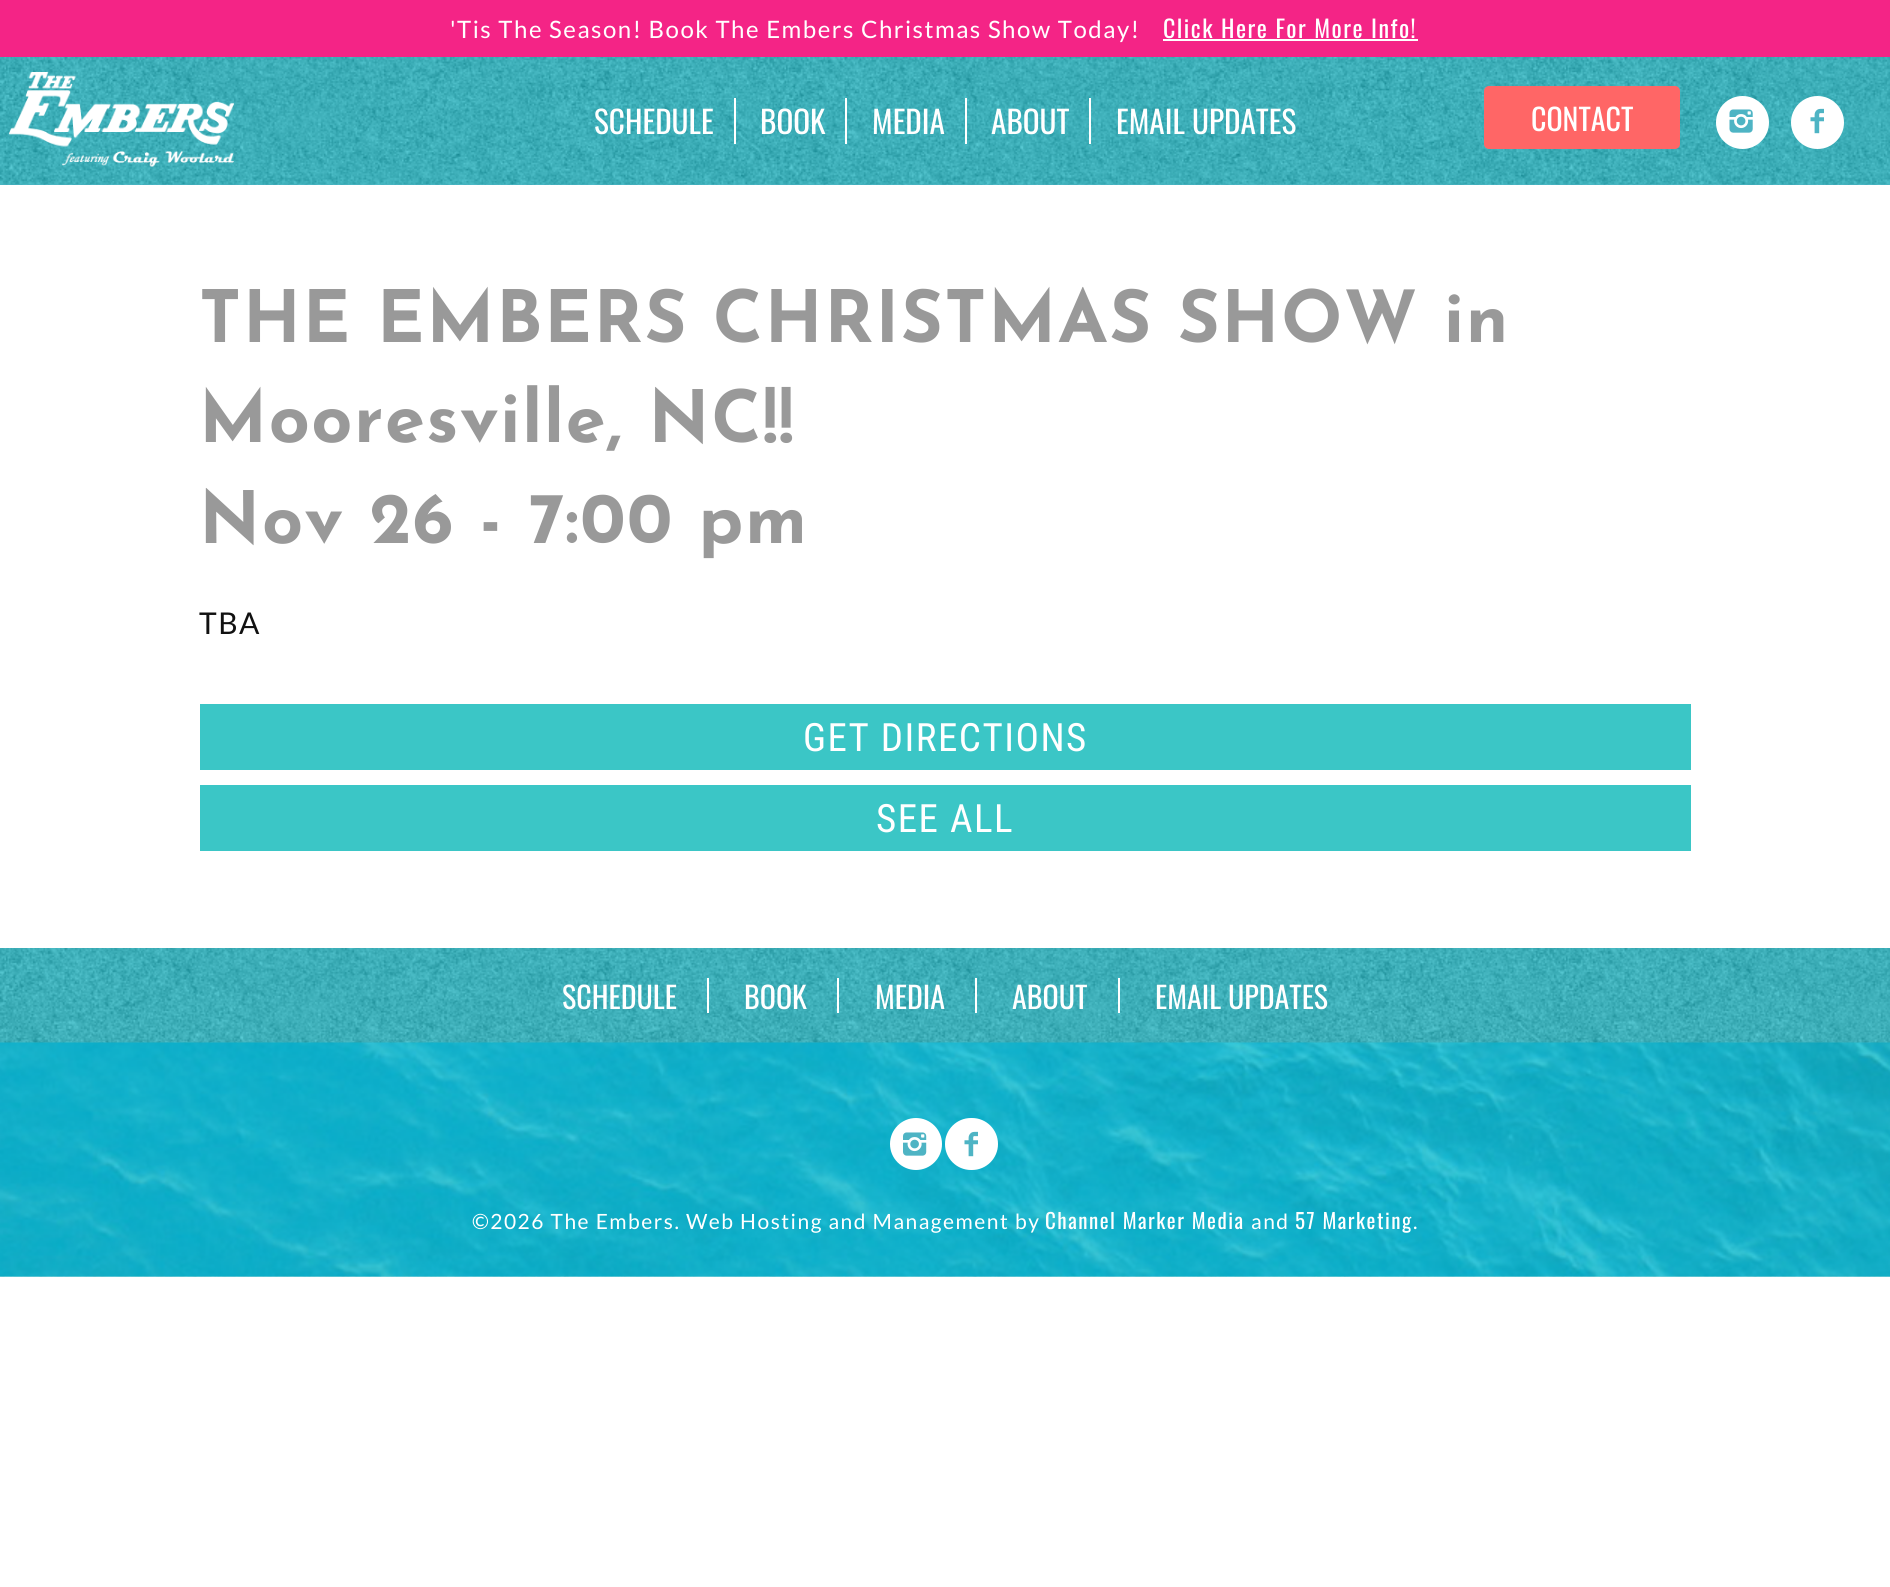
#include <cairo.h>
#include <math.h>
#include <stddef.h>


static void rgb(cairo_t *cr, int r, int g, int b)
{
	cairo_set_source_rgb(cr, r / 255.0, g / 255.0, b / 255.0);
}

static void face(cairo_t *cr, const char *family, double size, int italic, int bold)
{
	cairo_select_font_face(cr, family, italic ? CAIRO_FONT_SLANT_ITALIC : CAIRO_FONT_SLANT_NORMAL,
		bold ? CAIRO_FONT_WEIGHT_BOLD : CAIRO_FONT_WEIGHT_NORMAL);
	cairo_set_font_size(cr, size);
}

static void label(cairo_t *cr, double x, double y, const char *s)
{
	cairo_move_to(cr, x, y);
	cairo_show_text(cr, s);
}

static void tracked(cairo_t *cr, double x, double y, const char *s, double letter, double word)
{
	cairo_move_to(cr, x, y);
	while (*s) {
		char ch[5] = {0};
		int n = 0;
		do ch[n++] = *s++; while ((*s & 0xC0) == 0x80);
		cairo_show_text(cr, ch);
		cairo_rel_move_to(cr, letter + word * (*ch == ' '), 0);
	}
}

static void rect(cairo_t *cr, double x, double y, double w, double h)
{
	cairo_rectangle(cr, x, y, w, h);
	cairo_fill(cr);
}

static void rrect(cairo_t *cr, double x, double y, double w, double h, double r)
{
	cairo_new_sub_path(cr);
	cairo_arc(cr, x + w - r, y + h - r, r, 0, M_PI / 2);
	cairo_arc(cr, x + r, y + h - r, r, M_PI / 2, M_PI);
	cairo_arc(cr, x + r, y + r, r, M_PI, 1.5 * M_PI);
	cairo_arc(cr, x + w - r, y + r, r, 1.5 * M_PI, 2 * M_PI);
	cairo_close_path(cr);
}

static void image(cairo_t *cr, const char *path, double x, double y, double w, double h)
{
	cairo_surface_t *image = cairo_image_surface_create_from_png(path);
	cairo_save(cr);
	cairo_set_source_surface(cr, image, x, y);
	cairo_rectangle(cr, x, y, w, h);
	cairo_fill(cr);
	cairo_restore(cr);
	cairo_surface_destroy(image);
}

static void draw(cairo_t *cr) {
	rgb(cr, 255, 255, 255);
	cairo_paint(cr);
	rgb(cr, 244, 36, 134);
	rect(cr, 0, 0, 1890, 57);
	face(cr, "Lato", 24, 0, 0);
	rgb(cr, 255, 255, 255);
	tracked(cr, 450, 38, "'Tis The Season! Book The Embers Christmas Show Today!", 1.5, 0);
	face(cr, "Oswald", 24, 0, 0);
	tracked(cr, 1163, 38, "Click Here For More Info!", 1.5, 0);
	rect(cr, 1163, 39, 255, 2);
	rgb(cr, 78, 180, 196);
	rect(cr, 0, 184, 1890, 1);
	image(cr, "image0.png", 0, 57, 1890, 128);
	image(cr, "image1.png", 9, 72, 225, 95);
	rgb(cr, 255, 255, 255);
	rect(cr, 734, 98, 2, 46);
	face(cr, "Oswald", 31.25, 0, 0);
	label(cr, 594, 134, "SCHEDULE");
	rect(cr, 845, 98, 2, 46);
	label(cr, 760, 134, "BOOK");
	rect(cr, 965, 98, 2, 46);
	label(cr, 872, 134, "MEDIA");
	rect(cr, 1089, 98, 2, 46);
	label(cr, 991, 134, "ABOUT");
	label(cr, 1116, 134, "EMAIL UPDATES");
	rgb(cr, 255, 102, 102);
	rrect(cr, 1485, 87, 194, 61, 4);
	cairo_fill_preserve(cr);
	cairo_stroke(cr);
	face(cr, "Oswald", 30, 0, 0);
	rgb(cr, 255, 255, 255);
	label(cr, 1531, 131, "CONTACT");
	cairo_new_path(cr);
	cairo_arc(cr, 1742.5, 122.5, 26.5, 0, 2 * M_PI);
	cairo_fill(cr);
	image(cr, "image2.png", 1729, 109, 24, 24);
	cairo_arc(cr, 1817.5, 122.5, 26.5, 0, 2 * M_PI);
	cairo_fill(cr);
	image(cr, "image3.png", 1810, 108, 14, 26);
	face(cr, "Josefin Sans", 72, 0, 1);
	rgb(cr, 153, 153, 153);
	tracked(cr, 199, 342, "THE EMBERS CHRISTMAS SHOW in", 1.5, 0);
	tracked(cr, 199, 442, "Mooresville, NC!!", 1.5, 0);
	tracked(cr, 199, 543, "Nov 26 - 7:00 pm", 1.5, 0);
	face(cr, "Lato", 30, 0, 0);
	rgb(cr, 17, 17, 17);
	tracked(cr, 199, 634, "TBA", 1.5, 0);
	rgb(cr, 59, 198, 198);
	rect(cr, 200, 704, 1491, 66);
	face(cr, "Roboto Condensed", 39, 0, 0);
	rgb(cr, 255, 255, 255);
	tracked(cr, 803, 751, "GET DIRECTIONS", 1.5, 0);
	rgb(cr, 59, 198, 198);
	rect(cr, 200, 785, 1491, 66);
	rgb(cr, 255, 255, 255);
	tracked(cr, 876, 832, "SEE ALL", 1.5, 0);
	image(cr, "image4.png", 0, 948, 1890, 329);
	rect(cr, 707, 978, 2, 35);
	face(cr, "Oswald", 30, 0, 0);
	label(cr, 562, 1009, "SCHEDULE");
	rect(cr, 837, 978, 2, 35);
	label(cr, 744, 1009, "BOOK");
	rect(cr, 975, 978, 2, 35);
	label(cr, 875, 1009, "MEDIA");
	rect(cr, 1118, 978, 2, 35);
	label(cr, 1012, 1009, "ABOUT");
	label(cr, 1155, 1009, "EMAIL UPDATES");
	image(cr, "image5.png", 0, 1042, 1890, 235);
	cairo_arc(cr, 916, 1144, 26, 0, 2 * M_PI);
	cairo_fill(cr);
	image(cr, "image6.png", 903, 1132, 24, 24);
	rrect(cr, 945, 1118, 53, 52, 26);
	cairo_fill(cr);
	image(cr, "image3.png", 964, 1131, 14, 26);
	face(cr, "Lato", 21, 0, 0);
	tracked(cr, 472, 1229, "©2026 The Embers. Web Hosting and Management by", 1.5, 0);
	face(cr, "Oswald", 21, 0, 0);
	tracked(cr, 1045, 1229, "Channel Marker Media", 1.5, 0);
	face(cr, "Lato", 21, 0, 0);
	tracked(cr, 1251, 1229, "and", 1.5, 0);
	face(cr, "Oswald", 21, 0, 0);
	tracked(cr, 1295, 1229, "57 Marketing", 1.5, 0);
	face(cr, "Lato", 21, 0, 0);
	tracked(cr, 1413, 1229, ".", 1.5, 0);
}

int main(void) {
	cairo_surface_t *surface = cairo_image_surface_create(CAIRO_FORMAT_RGB24, 1890, 1587);
	cairo_t *cr = cairo_create(surface);
	cairo_font_options_t *options = cairo_font_options_create();
	cairo_font_options_set_hint_metrics(options, CAIRO_HINT_METRICS_OFF);
	cairo_font_options_set_hint_style(options, CAIRO_HINT_STYLE_NONE);
	cairo_set_font_options(cr, options);
	cairo_set_miter_limit(cr, 4);
	draw(cr);
	cairo_surface_write_to_png(surface, "render.png");
	cairo_font_options_destroy(options);
	cairo_destroy(cr);
	cairo_surface_destroy(surface);
	return 0;
}
